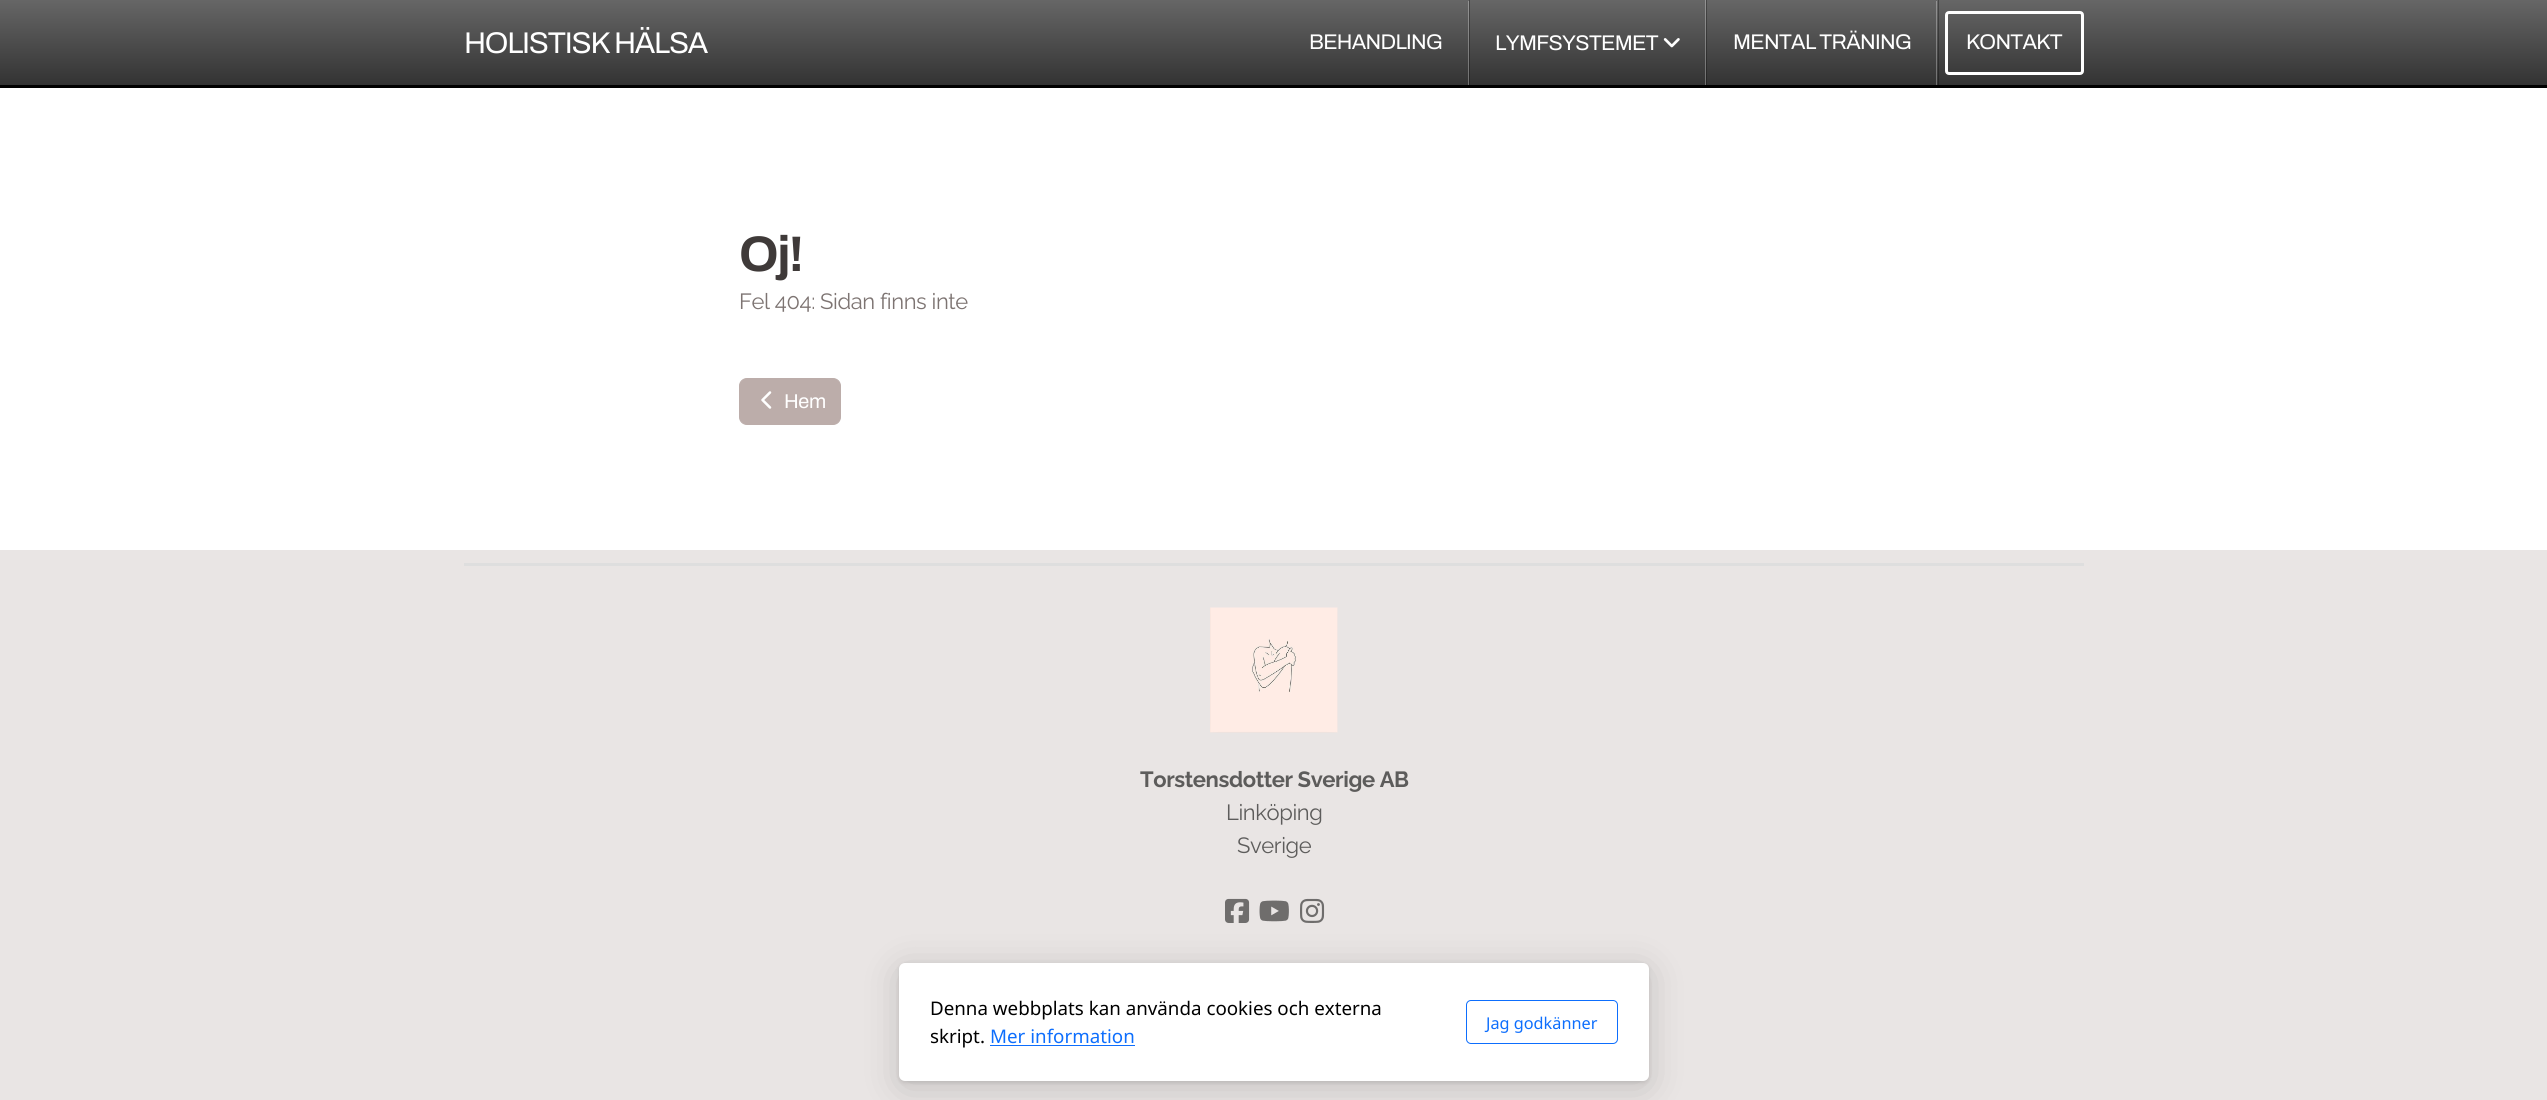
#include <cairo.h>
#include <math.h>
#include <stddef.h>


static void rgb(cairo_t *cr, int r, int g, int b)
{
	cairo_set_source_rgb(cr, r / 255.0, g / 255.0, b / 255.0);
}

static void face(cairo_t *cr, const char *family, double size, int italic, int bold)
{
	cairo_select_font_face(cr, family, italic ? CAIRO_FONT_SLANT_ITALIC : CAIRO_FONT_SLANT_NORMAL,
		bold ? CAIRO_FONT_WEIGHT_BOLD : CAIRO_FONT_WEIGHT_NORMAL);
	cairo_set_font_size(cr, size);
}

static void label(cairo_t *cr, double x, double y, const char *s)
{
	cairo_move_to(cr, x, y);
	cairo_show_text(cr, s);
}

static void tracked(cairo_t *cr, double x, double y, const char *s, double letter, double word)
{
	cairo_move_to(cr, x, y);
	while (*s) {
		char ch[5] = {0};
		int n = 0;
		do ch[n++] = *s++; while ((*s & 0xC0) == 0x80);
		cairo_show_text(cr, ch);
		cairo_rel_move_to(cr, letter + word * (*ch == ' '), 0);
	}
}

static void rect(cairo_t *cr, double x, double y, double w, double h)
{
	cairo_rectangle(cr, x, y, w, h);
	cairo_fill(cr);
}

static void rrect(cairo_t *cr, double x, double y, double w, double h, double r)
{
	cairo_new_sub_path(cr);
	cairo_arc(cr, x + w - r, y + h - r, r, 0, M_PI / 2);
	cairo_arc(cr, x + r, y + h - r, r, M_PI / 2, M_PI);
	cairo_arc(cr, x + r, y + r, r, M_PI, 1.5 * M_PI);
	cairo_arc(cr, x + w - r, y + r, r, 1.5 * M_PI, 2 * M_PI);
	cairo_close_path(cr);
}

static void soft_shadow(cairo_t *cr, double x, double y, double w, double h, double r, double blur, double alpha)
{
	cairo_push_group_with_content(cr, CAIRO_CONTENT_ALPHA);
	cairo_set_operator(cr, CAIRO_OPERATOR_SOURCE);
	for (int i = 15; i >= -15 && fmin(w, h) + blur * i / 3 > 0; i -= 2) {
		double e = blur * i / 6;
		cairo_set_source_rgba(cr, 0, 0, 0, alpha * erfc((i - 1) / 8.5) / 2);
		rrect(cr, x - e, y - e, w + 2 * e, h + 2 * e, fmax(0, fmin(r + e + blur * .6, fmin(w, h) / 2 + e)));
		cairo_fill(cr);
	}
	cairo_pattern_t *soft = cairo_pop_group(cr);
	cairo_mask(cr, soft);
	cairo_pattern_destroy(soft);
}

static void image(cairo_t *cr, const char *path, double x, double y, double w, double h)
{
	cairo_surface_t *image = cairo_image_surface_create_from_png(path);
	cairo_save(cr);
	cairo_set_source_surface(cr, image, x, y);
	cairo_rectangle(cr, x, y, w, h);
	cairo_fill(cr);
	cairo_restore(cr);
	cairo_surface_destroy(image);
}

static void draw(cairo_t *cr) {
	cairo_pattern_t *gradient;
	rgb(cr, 255, 255, 255);
	cairo_paint(cr);
	gradient = cairo_pattern_create_linear(1274, 0, 1274, 85);
	cairo_pattern_add_color_stop_rgba(gradient, 0, 0.4, 0.4, 0.4, 1);
	cairo_pattern_add_color_stop_rgba(gradient, 1, 0.2, 0.2, 0.2, 1);
	cairo_set_source(cr, gradient);
	cairo_pattern_destroy(gradient);
	rect(cr, 0, 0, 2547, 85);
	gradient = cairo_pattern_create_linear(1274, 0, 1274, 85);
	cairo_pattern_add_color_stop_rgba(gradient, 0, 0.58, 0.58, 0.58, 1);
	cairo_pattern_add_color_stop_rgba(gradient, 1, 0.439, 0.439, 0.439, 1);
	cairo_set_source(cr, gradient);
	cairo_pattern_destroy(gradient);
	rect(cr, 1936, 1, 1, 84);
	gradient = cairo_pattern_create_linear(1274, 0, 1274, 85);
	cairo_pattern_add_color_stop_rgba(gradient, 0, 0.278, 0.278, 0.278, 1);
	cairo_pattern_add_color_stop_rgba(gradient, 1, 0.141, 0.141, 0.141, 1);
	cairo_set_source(cr, gradient);
	cairo_pattern_destroy(gradient);
	rect(cr, 1938, 0, 1, 85);
	gradient = cairo_pattern_create_linear(1274, 0, 1274, 85);
	cairo_pattern_add_color_stop_rgba(gradient, 0, 0.58, 0.58, 0.58, 1);
	cairo_pattern_add_color_stop_rgba(gradient, 1, 0.439, 0.439, 0.439, 1);
	cairo_set_source(cr, gradient);
	cairo_pattern_destroy(gradient);
	rect(cr, 1705, 0, 1, 85);
	gradient = cairo_pattern_create_linear(1274, 0, 1274, 85);
	cairo_pattern_add_color_stop_rgba(gradient, 0, 0.278, 0.278, 0.278, 1);
	cairo_pattern_add_color_stop_rgba(gradient, 1, 0.141, 0.141, 0.141, 1);
	cairo_set_source(cr, gradient);
	cairo_pattern_destroy(gradient);
	rect(cr, 1706, 0, 1, 85);
	gradient = cairo_pattern_create_linear(1274, 0, 1274, 85);
	cairo_pattern_add_color_stop_rgba(gradient, 0, 0.58, 0.58, 0.58, 1);
	cairo_pattern_add_color_stop_rgba(gradient, 1, 0.439, 0.439, 0.439, 1);
	cairo_set_source(cr, gradient);
	cairo_pattern_destroy(gradient);
	rect(cr, 1468, 1, 1, 84);
	gradient = cairo_pattern_create_linear(1274, 0, 1274, 85);
	cairo_pattern_add_color_stop_rgba(gradient, 0, 0.278, 0.278, 0.278, 1);
	cairo_pattern_add_color_stop_rgba(gradient, 1, 0.141, 0.141, 0.141, 1);
	cairo_set_source(cr, gradient);
	cairo_pattern_destroy(gradient);
	rect(cr, 1469, 0, 1, 85);
	rgb(cr, 0, 0, 0);
	rect(cr, 0, 85, 2547, 3);
	face(cr, "Archivo", 30, 0, 0);
	rgb(cr, 255, 255, 255);
	tracked(cr, 464, 53, "HOLISTISK HÄLSA", -1.25, 0);
	face(cr, "Archivo", 21.25, 0, 0);
	tracked(cr, 1309, 49, "BEHANDLING", -0.7, 0);
	tracked(cr, 1495, 50, "LYMFSYSTEMET", -0.7, 0);
	image(cr, "image0.png", 1663, 38, 17, 10);
	tracked(cr, 1733, 49, "MENTAL TRÄNING", -0.7, 0);
	rrect(cr, 1946.5, 12.5, 136, 61, 2.5);
	cairo_set_line_width(cr, 3);
	cairo_stroke(cr);
	tracked(cr, 1966, 49, "KONTAKT", -0.7, 0);
	face(cr, "Archivo", 50, 0, 1);
	rgb(cr, 63, 58, 57);
	tracked(cr, 739, 271, "Oj!", -1.5, 0);
	face(cr, "Raleway", 22, 0, 0);
	rgb(cr, 125, 116, 114);
	tracked(cr, 739, 309, "Fel 404: Sidan finns inte", -0.4, 0);
	rgb(cr, 188, 173, 170);
	rrect(cr, 739.5, 378.5, 101, 46, 7.5);
	cairo_fill_preserve(cr);
	cairo_set_line_width(cr, 1);
	cairo_stroke(cr);
	image(cr, "image1.png", 761, 391, 11, 18);
	face(cr, "Archivo", 20, 0, 0);
	rgb(cr, 255, 255, 255);
	tracked(cr, 784, 408, "Hem", -0.4, 0);
	rgb(cr, 233, 229, 228);
	rect(cr, 0, 550, 2547, 550);
	rgb(cr, 222, 222, 222);
	rect(cr, 464, 563, 1620, 3);
	image(cr, "image2.png", 1210, 607, 128, 126);
	face(cr, "Raleway", 22, 0, 1);
	rgb(cr, 93, 92, 91);
	tracked(cr, 1140, 787, "Torstensdotter Sverige AB", -0.4, 0);
	face(cr, "Raleway", 22, 0, 0);
	tracked(cr, 1226, 820, "Linköping", -0.4, 0);
	tracked(cr, 1237, 853, "Sverige", -0.4, 0);
	image(cr, "image3.png", 1225, 898, 25, 25);
	image(cr, "image4.png", 1259, 900, 30, 22);
	image(cr, "image5.png", 1300, 898, 25, 25);
	rgb(cr, 0, 0, 0);
	soft_shadow(cr, 899, 969, 750, 119, 6, 19, 0.16);
	soft_shadow(cr, 899, 964, 750, 119, 6, 2, 0.1);
	rgb(cr, 255, 255, 255);
	rrect(cr, 899, 963, 750, 118, 6);
	cairo_fill(cr);
	face(cr, "Noto Sans", 18.75, 0, 0);
	rgb(cr, 0, 0, 0);
	label(cr, 930, 1015, "Denna webbplats kan använda cookies och externa");
	label(cr, 930, 1043, "skript.");
	rgb(cr, 13, 110, 253);
	label(cr, 990, 1043, "Mer information");
	rect(cr, 990, 1045, 145, 1);
	rrect(cr, 1466.5, 1000.5, 151, 43, 4.5);
	cairo_stroke(cr);
	face(cr, "Noto Sans", 16.25, 0, 0);
	label(cr, 1486, 1029, "Jag godkänner");
}

int main(void) {
	cairo_surface_t *surface = cairo_image_surface_create(CAIRO_FORMAT_RGB24, 2547, 1100);
	cairo_t *cr = cairo_create(surface);
	cairo_font_options_t *options = cairo_font_options_create();
	cairo_font_options_set_hint_metrics(options, CAIRO_HINT_METRICS_OFF);
	cairo_font_options_set_hint_style(options, CAIRO_HINT_STYLE_NONE);
	cairo_set_font_options(cr, options);
	cairo_set_miter_limit(cr, 4);
	draw(cr);
	cairo_surface_write_to_png(surface, "render.png");
	cairo_font_options_destroy(options);
	cairo_destroy(cr);
	cairo_surface_destroy(surface);
	return 0;
}
